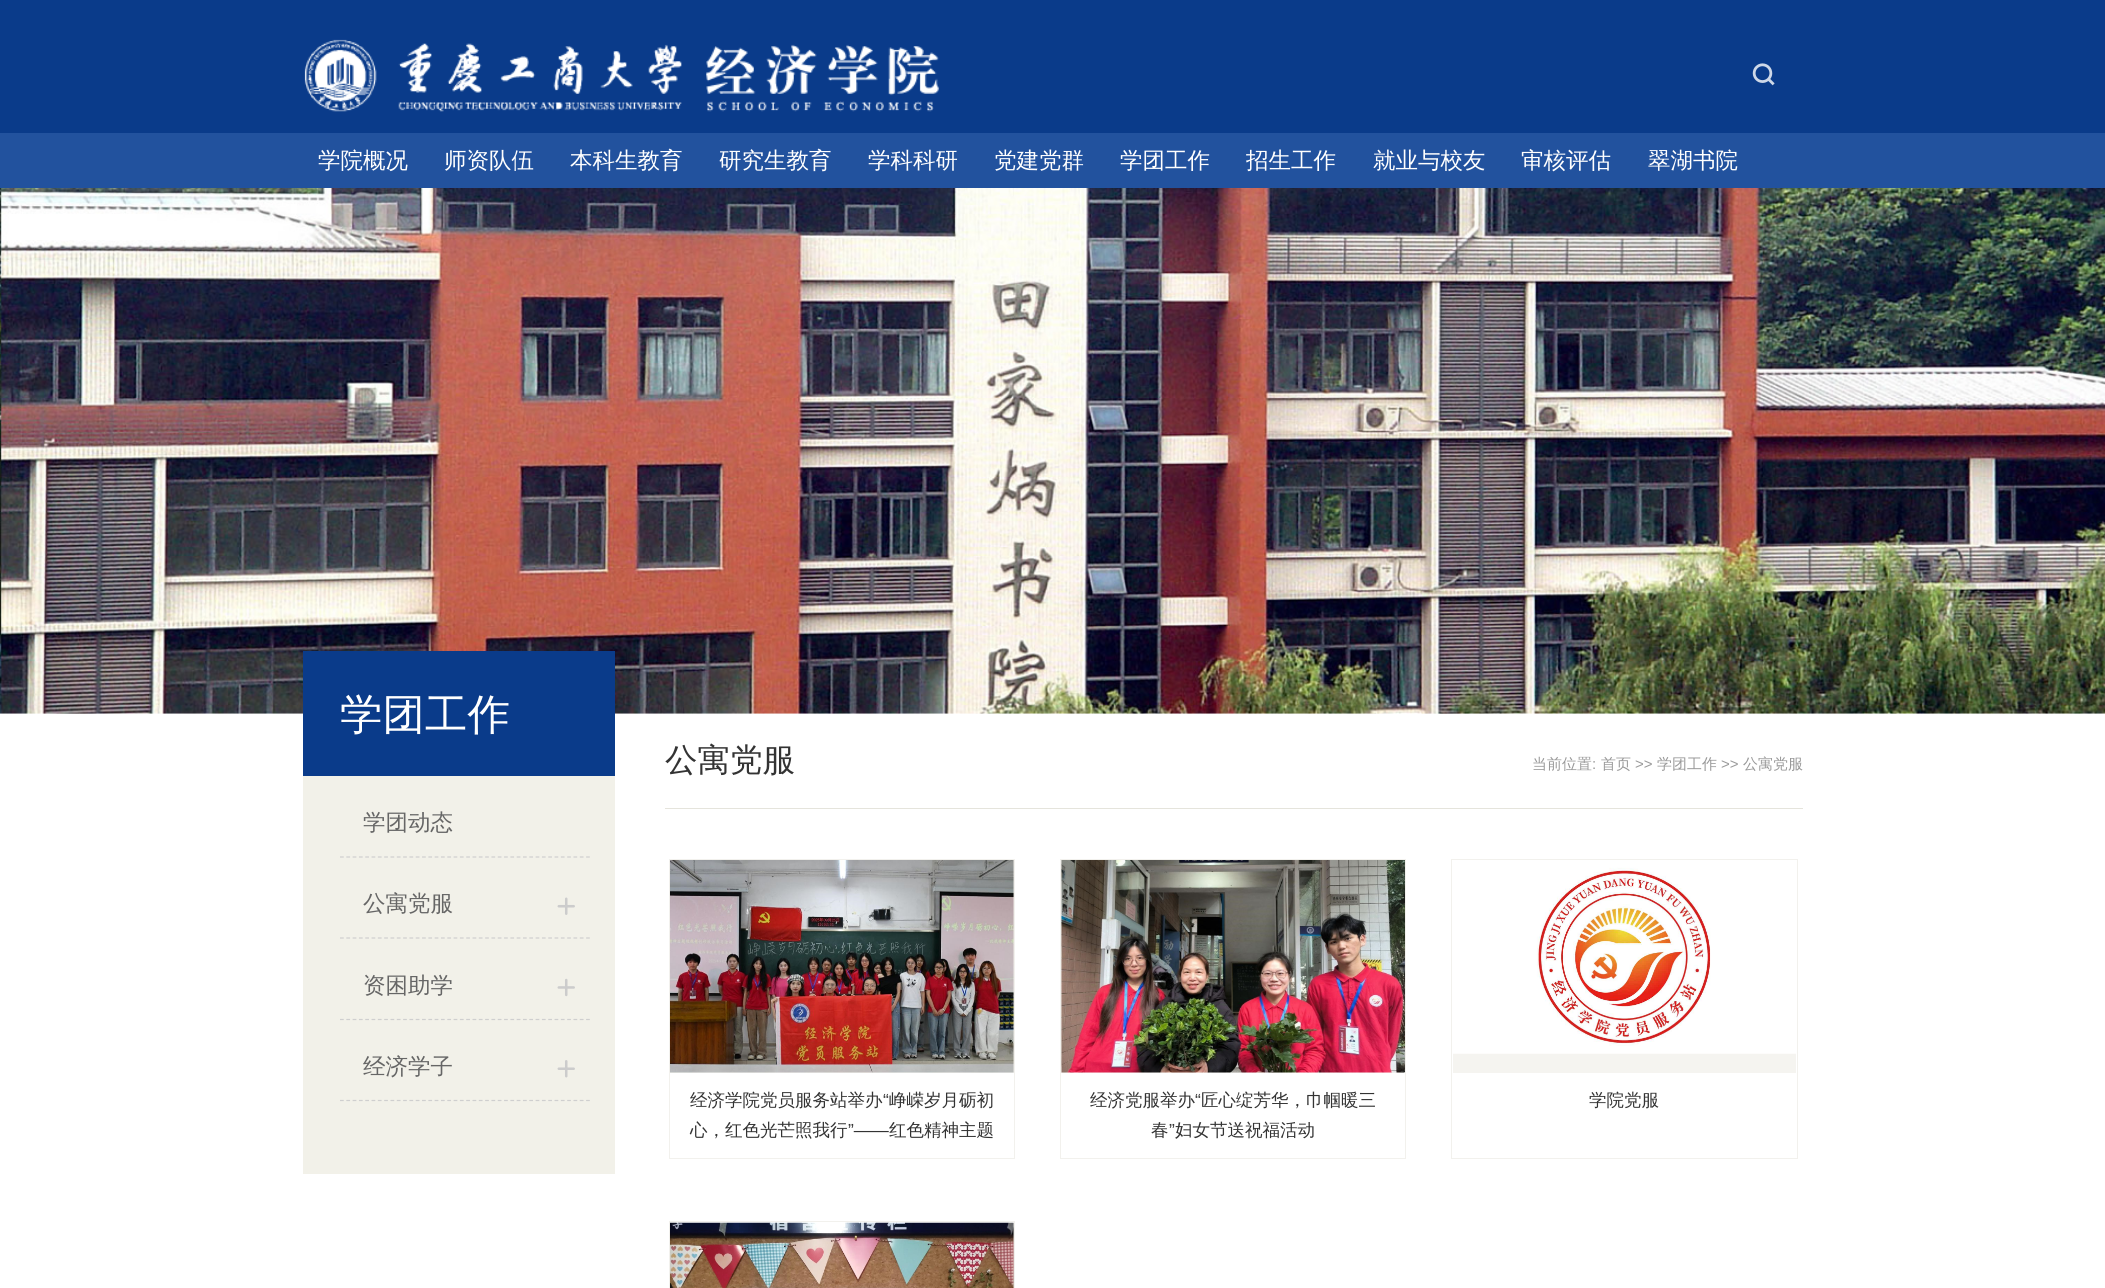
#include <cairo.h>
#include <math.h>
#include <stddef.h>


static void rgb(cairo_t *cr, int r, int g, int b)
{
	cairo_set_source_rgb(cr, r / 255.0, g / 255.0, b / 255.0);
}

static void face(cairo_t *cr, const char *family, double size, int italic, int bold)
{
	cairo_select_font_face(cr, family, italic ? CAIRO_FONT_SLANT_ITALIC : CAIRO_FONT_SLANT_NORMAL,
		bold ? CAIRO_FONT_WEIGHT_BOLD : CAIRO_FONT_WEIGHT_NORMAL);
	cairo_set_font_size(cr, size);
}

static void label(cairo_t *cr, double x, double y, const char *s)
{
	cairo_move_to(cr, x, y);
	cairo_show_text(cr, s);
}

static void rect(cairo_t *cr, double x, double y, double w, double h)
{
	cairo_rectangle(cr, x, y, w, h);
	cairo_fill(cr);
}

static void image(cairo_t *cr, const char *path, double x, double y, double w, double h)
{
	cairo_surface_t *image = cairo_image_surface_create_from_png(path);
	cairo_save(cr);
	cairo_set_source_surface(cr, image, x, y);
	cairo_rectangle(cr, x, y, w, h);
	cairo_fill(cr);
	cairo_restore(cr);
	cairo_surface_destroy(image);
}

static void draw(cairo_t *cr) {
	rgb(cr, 255, 255, 255);
	cairo_paint(cr);
	rgb(cr, 10, 59, 138);
	rect(cr, 0, 0, 2105, 133);
	image(cr, "image0.png", 304, 39, 635, 73);
	image(cr, "image1.png", 1752, 63, 23, 23);
	rgb(cr, 34, 82, 158);
	rect(cr, 0, 133, 2105, 55);
	face(cr, "WenQuanYi Zen Hei Medium", 22.5, 0, 0);
	rgb(cr, 255, 255, 255);
	label(cr, 318, 168, "学院概况");
	label(cr, 444, 168, "师资队伍");
	label(cr, 570, 168, "本科生教育");
	label(cr, 719, 168, "研究生教育");
	label(cr, 868, 168, "学科科研");
	label(cr, 994, 168, "党建党群");
	label(cr, 1120, 168, "学团工作");
	label(cr, 1246, 168, "招生工作");
	label(cr, 1373, 168, "就业与校友");
	label(cr, 1521, 168, "审核评估");
	label(cr, 1648, 168, "翠湖书院");
	image(cr, "image2.png", 0, 188, 2105, 526);
	rgb(cr, 242, 241, 233);
	rect(cr, 303, 776, 312, 398);
	rgb(cr, 10, 59, 138);
	rect(cr, 303, 651, 312, 125);
	face(cr, "WenQuanYi Zen Hei Medium", 42.5, 0, 0);
	rgb(cr, 255, 255, 255);
	label(cr, 340, 729, "学团工作");
	cairo_new_path(cr);
	cairo_move_to(cr, 340, 857);
	cairo_line_to(cr, 590, 857);
	rgb(cr, 207, 207, 207);
	cairo_set_line_width(cr, 1.2);
	cairo_set_dash(cr, (double[]){3.75, 2.56}, 2, 0);
	cairo_stroke(cr);
	face(cr, "WenQuanYi Zen Hei Medium", 22.5, 0, 0);
	rgb(cr, 102, 102, 102);
	label(cr, 363, 830, "学团动态");
	cairo_new_path(cr);
	cairo_move_to(cr, 340, 938);
	cairo_line_to(cr, 590, 938);
	rgb(cr, 207, 207, 207);
	cairo_stroke(cr);
	rgb(cr, 102, 102, 102);
	label(cr, 363, 911, "公寓党服");
	image(cr, "image3.png", 557, 897, 18, 18);
	cairo_new_path(cr);
	cairo_move_to(cr, 340, 1019.5);
	cairo_line_to(cr, 590, 1019.5);
	rgb(cr, 207, 207, 207);
	cairo_stroke(cr);
	rgb(cr, 102, 102, 102);
	label(cr, 363, 993, "资困助学");
	image(cr, "image4.png", 557, 978, 18, 19);
	cairo_new_path(cr);
	cairo_move_to(cr, 340, 1100.5);
	cairo_line_to(cr, 590, 1100.5);
	rgb(cr, 207, 207, 207);
	cairo_stroke(cr);
	rgb(cr, 102, 102, 102);
	label(cr, 363, 1074, "经济学子");
	image(cr, "image5.png", 557, 1060, 18, 18);
	rgb(cr, 229, 228, 220);
	rect(cr, 665, 808, 1138, 1);
	face(cr, "WenQuanYi Zen Hei Medium", 32.5, 0, 0);
	rgb(cr, 51, 51, 51);
	label(cr, 665, 771, "公寓党服");
	face(cr, "WenQuanYi Zen Hei Medium", 15, 0, 0);
	rgb(cr, 153, 153, 153);
	label(cr, 1532, 769, "当前位置");
	face(cr, "Liberation Sans", 15, 0, 0);
	label(cr, 1592, 769, ":");
	face(cr, "WenQuanYi Zen Hei Medium", 15, 0, 0);
	label(cr, 1601, 769, "首页");
	face(cr, "Liberation Sans", 15, 0, 0);
	label(cr, 1635, 769, ">>");
	face(cr, "WenQuanYi Zen Hei Medium", 15, 0, 0);
	label(cr, 1657, 769, "学团工作");
	face(cr, "Liberation Sans", 15, 0, 0);
	label(cr, 1721, 769, ">>");
	face(cr, "WenQuanYi Zen Hei Medium", 15, 0, 0);
	label(cr, 1743, 769, "公寓党服");
	cairo_rectangle(cr, 669.5, 859.5, 345, 299);
	rgb(cr, 242, 241, 237);
	cairo_set_line_width(cr, 1);
	cairo_set_dash(cr, NULL, 0, 0);
	cairo_stroke(cr);
	rgb(cr, 245, 244, 240);
	rect(cr, 670, 860, 344, 213);
	image(cr, "image6.png", 670, 860, 344, 213);
	face(cr, "WenQuanYi Zen Hei Medium", 17.5, 0, 0);
	rgb(cr, 51, 51, 51);
	label(cr, 690, 1106, "经济学院党员服务站举办");
	face(cr, "Liberation Sans", 17.5, 0, 0);
	label(cr, 883, 1106, "“");
	face(cr, "WenQuanYi Zen Hei Medium", 17.5, 0, 0);
	label(cr, 889, 1106, "峥嵘岁月砺初");
	label(cr, 690, 1136, "心，红色光芒照我行");
	face(cr, "Liberation Sans", 17.5, 0, 0);
	label(cr, 848, 1136, "”——");
	face(cr, "WenQuanYi Zen Hei Medium", 17.5, 0, 0);
	label(cr, 889, 1136, "红色精神主题");
	cairo_rectangle(cr, 1060.5, 859.5, 345, 299);
	rgb(cr, 242, 241, 237);
	cairo_stroke(cr);
	rgb(cr, 245, 244, 240);
	rect(cr, 1061, 860, 344, 213);
	image(cr, "image7.png", 1061, 860, 344, 213);
	rgb(cr, 51, 51, 51);
	label(cr, 1090, 1106, "经济党服举办");
	face(cr, "Liberation Sans", 17.5, 0, 0);
	label(cr, 1195, 1106, "“");
	face(cr, "WenQuanYi Zen Hei Medium", 17.5, 0, 0);
	label(cr, 1201, 1106, "匠心绽芳华，巾帼暖三");
	label(cr, 1151, 1136, "春");
	face(cr, "Liberation Sans", 17.5, 0, 0);
	label(cr, 1169, 1136, "”");
	face(cr, "WenQuanYi Zen Hei Medium", 17.5, 0, 0);
	label(cr, 1175, 1136, "妇女节送祝福活动");
	cairo_rectangle(cr, 1451.5, 859.5, 346, 299);
	rgb(cr, 242, 241, 237);
	cairo_stroke(cr);
	rgb(cr, 245, 244, 240);
	rect(cr, 1453, 1053, 343, 20);
	image(cr, "image8.png", 1453, 860, 343, 194);
	rgb(cr, 51, 51, 51);
	label(cr, 1589, 1106, "学院党服");
	cairo_rectangle(cr, 669.5, 1221.5, 345, 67);
	rgb(cr, 242, 241, 237);
	cairo_stroke(cr);
	rgb(cr, 245, 244, 240);
	rect(cr, 1013, 1223, 1, 65);
	image(cr, "image9.png", 670, 1222, 344, 66);
}

int main(void) {
	cairo_surface_t *surface = cairo_image_surface_create(CAIRO_FORMAT_RGB24, 2105, 1288);
	cairo_t *cr = cairo_create(surface);
	cairo_font_options_t *options = cairo_font_options_create();
	cairo_font_options_set_hint_metrics(options, CAIRO_HINT_METRICS_OFF);
	cairo_font_options_set_hint_style(options, CAIRO_HINT_STYLE_NONE);
	cairo_set_font_options(cr, options);
	cairo_set_miter_limit(cr, 4);
	draw(cr);
	cairo_surface_write_to_png(surface, "render.png");
	cairo_font_options_destroy(options);
	cairo_destroy(cr);
	cairo_surface_destroy(surface);
	return 0;
}
